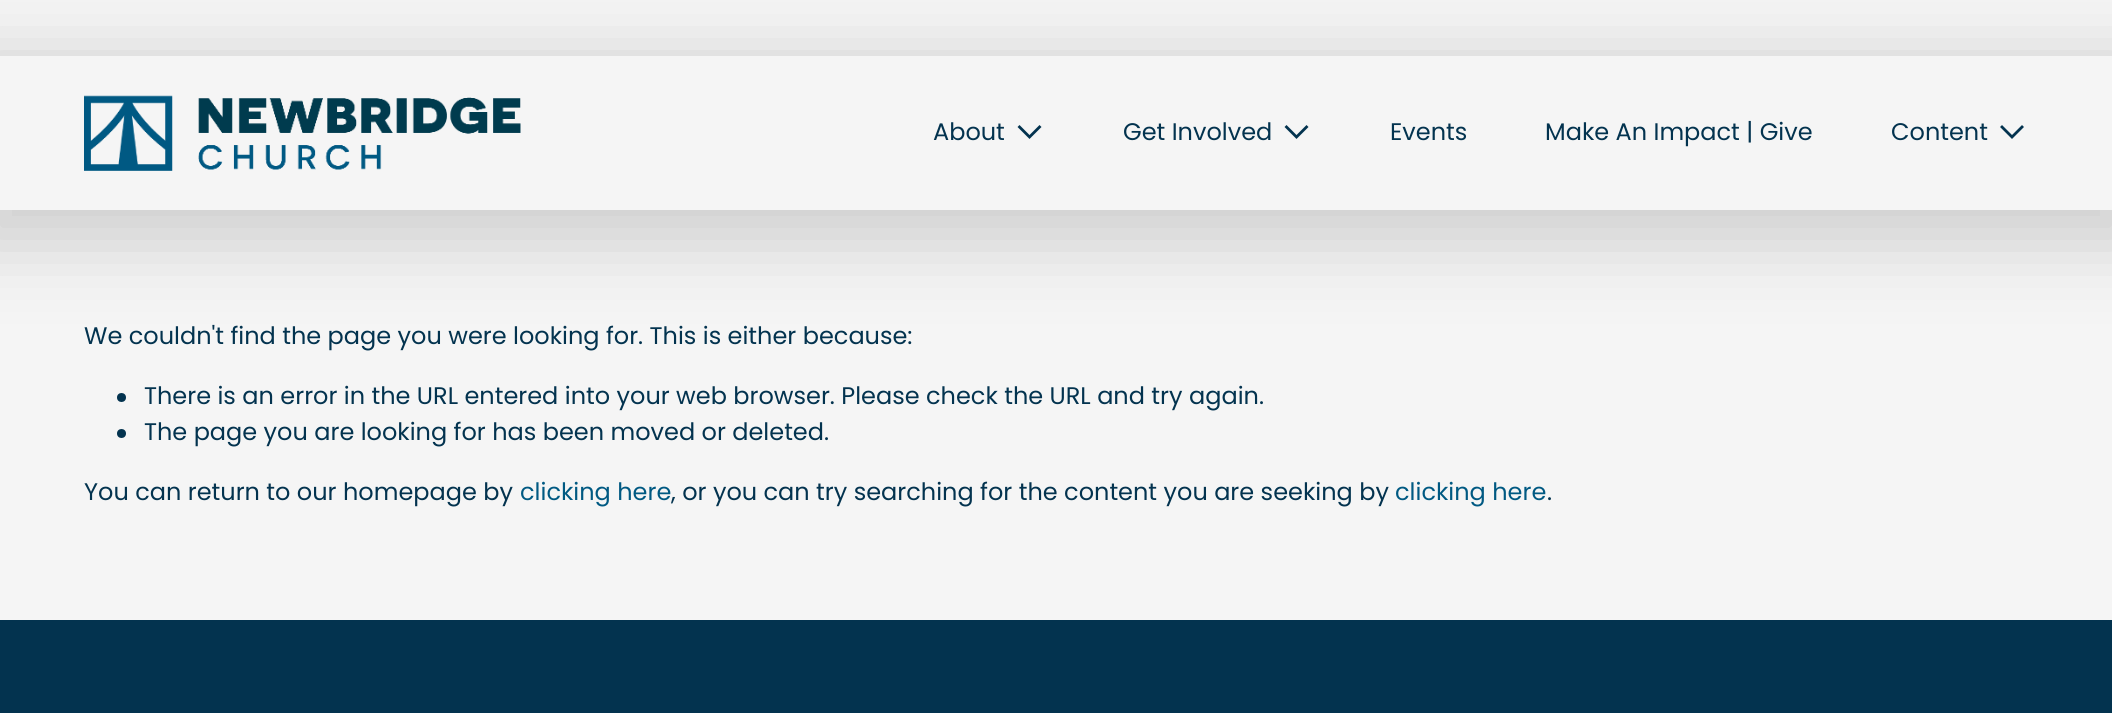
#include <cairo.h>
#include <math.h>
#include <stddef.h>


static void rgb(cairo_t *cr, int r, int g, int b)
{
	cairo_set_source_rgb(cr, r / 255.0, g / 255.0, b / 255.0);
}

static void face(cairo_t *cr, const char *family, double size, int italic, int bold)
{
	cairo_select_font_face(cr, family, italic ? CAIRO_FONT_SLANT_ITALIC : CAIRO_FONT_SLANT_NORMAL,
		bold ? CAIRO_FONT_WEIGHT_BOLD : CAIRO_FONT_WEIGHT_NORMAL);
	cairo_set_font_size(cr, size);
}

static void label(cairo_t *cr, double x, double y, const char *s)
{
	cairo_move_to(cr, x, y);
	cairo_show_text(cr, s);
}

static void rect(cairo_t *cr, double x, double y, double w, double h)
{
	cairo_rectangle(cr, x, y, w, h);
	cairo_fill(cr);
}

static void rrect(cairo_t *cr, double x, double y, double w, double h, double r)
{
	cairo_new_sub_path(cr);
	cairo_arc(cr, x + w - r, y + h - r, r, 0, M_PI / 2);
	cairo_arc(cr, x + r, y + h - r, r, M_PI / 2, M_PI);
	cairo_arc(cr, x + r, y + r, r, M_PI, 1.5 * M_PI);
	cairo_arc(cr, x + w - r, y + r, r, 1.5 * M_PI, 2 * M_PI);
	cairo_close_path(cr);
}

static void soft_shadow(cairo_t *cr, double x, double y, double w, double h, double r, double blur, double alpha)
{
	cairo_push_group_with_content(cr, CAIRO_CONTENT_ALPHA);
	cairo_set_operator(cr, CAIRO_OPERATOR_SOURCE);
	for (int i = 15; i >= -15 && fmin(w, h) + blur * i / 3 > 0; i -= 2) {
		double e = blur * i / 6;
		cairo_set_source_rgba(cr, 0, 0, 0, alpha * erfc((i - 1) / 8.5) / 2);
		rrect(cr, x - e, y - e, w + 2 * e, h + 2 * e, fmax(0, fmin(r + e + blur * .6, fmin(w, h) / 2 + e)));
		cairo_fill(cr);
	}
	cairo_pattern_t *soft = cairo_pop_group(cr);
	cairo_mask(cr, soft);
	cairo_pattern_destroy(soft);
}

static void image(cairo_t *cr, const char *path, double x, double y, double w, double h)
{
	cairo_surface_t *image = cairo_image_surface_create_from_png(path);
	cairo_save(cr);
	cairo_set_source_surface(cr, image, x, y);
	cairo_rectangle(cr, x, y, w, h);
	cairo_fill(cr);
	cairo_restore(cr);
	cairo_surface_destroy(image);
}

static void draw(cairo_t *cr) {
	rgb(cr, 245, 245, 245);
	cairo_paint(cr);
	cairo_save(cr);
	cairo_set_fill_rule(cr, CAIRO_FILL_RULE_EVEN_ODD);
	cairo_new_path(cr);
	cairo_move_to(cr, 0, 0);
	cairo_line_to(cr, 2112, 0);
	cairo_line_to(cr, 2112, 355);
	cairo_line_to(cr, 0, 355);
	cairo_close_path(cr);
	cairo_move_to(cr, 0, 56);
	cairo_line_to(cr, 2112, 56);
	cairo_line_to(cr, 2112, 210);
	cairo_line_to(cr, 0, 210);
	cairo_close_path(cr);
	cairo_clip(cr);
	rgb(cr, 208, 208, 208);
	soft_shadow(cr, -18, 56, 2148, 190, 0, 36, 1);
	cairo_restore(cr);
	image(cr, "image0.png", 84, 95, 437, 76);
	face(cr, "Poppins", 24, 0, 0);
	rgb(cr, 3, 51, 79);
	label(cr, 933, 140, "About");
	cairo_new_path(cr);
	cairo_move_to(cr, 1039.5, 127);
	cairo_line_to(cr, 1029.5, 137);
	cairo_line_to(cr, 1019.5, 127);
	cairo_set_line_width(cr, 2.8);
	cairo_set_line_cap(cr, CAIRO_LINE_CAP_SQUARE);
	cairo_stroke(cr);
	label(cr, 1123, 140, "Get Involved");
	cairo_new_path(cr);
	cairo_move_to(cr, 1306.5, 127);
	cairo_line_to(cr, 1296.5, 137);
	cairo_line_to(cr, 1286.5, 127);
	cairo_stroke(cr);
	label(cr, 1390, 140, "Events");
	label(cr, 1545, 140, "Make An Impact | Give");
	label(cr, 1891, 140, "Content");
	cairo_new_path(cr);
	cairo_move_to(cr, 2022, 127);
	cairo_line_to(cr, 2012, 137);
	cairo_line_to(cr, 2002, 127);
	cairo_stroke(cr);
	label(cr, 84, 344, "We couldn't find the page you were looking for. This is either because:");
	cairo_new_path(cr);
	cairo_arc(cr, 121.5, 397.5, 4.5, 0, 2 * M_PI);
	cairo_fill(cr);
	label(cr, 144, 404, "There is an error in the URL entered into your web browser. Please check the URL and try again.");
	cairo_new_path(cr);
	cairo_arc(cr, 121.5, 433.5, 4.5, 0, 2 * M_PI);
	cairo_fill(cr);
	label(cr, 144, 440, "The page you are looking for has been moved or deleted.");
	label(cr, 84, 500, "You can return to our homepage by");
	rgb(cr, 0, 89, 130);
	label(cr, 520, 500, "clicking here");
	rgb(cr, 3, 51, 79);
	label(cr, 671, 500, ", or you can try searching for the content you are seeking by");
	rgb(cr, 0, 89, 130);
	label(cr, 1395, 500, "clicking here");
	rgb(cr, 3, 51, 79);
	label(cr, 1547, 500, ".");
	rect(cr, 0, 620, 2112, 93);
}

int main(void) {
	cairo_surface_t *surface = cairo_image_surface_create(CAIRO_FORMAT_RGB24, 2112, 713);
	cairo_t *cr = cairo_create(surface);
	cairo_font_options_t *options = cairo_font_options_create();
	cairo_font_options_set_hint_metrics(options, CAIRO_HINT_METRICS_OFF);
	cairo_font_options_set_hint_style(options, CAIRO_HINT_STYLE_NONE);
	cairo_set_font_options(cr, options);
	cairo_set_miter_limit(cr, 4);
	draw(cr);
	cairo_surface_write_to_png(surface, "render.png");
	cairo_font_options_destroy(options);
	cairo_destroy(cr);
	cairo_surface_destroy(surface);
	return 0;
}
